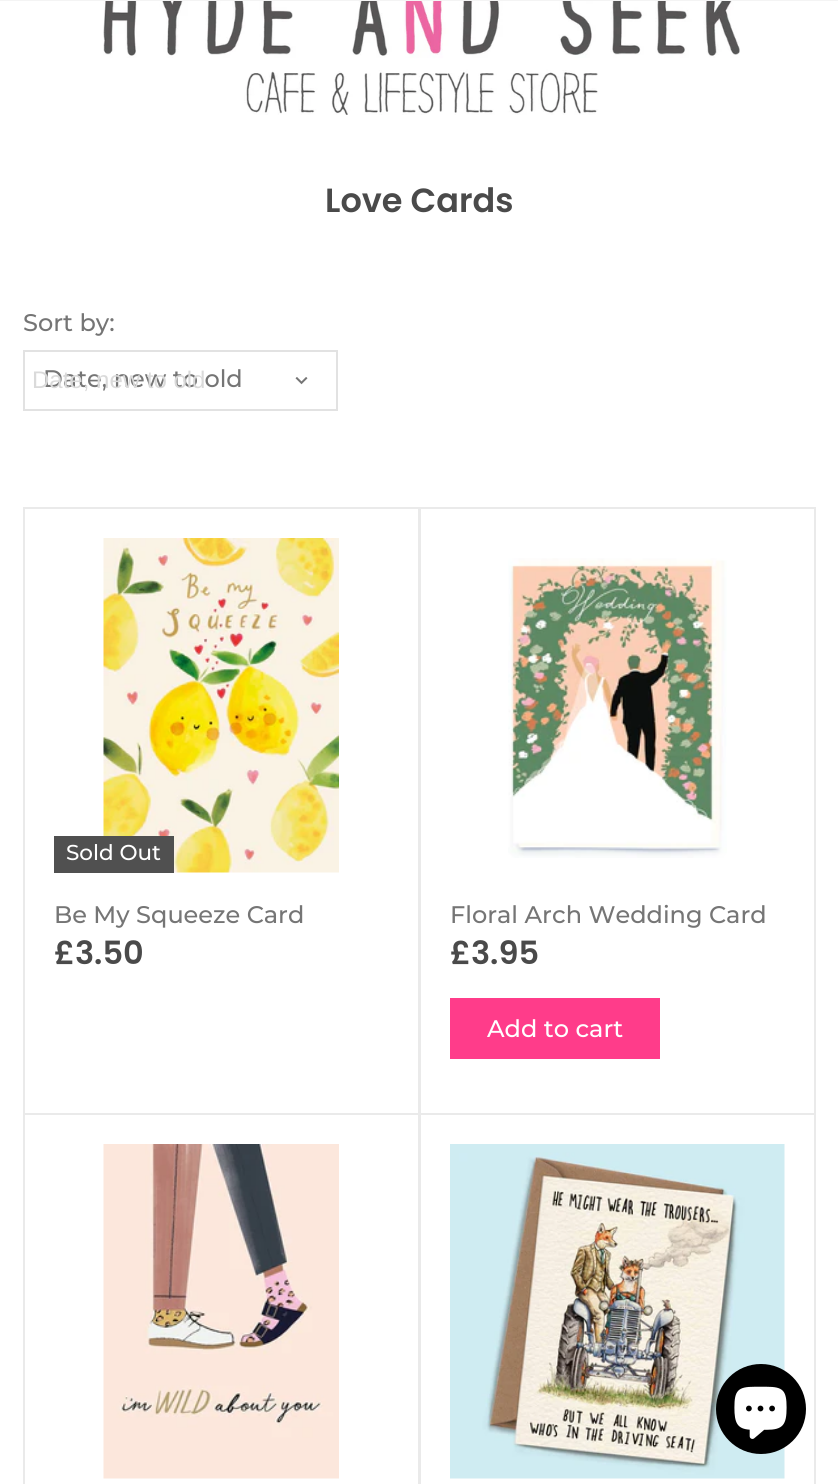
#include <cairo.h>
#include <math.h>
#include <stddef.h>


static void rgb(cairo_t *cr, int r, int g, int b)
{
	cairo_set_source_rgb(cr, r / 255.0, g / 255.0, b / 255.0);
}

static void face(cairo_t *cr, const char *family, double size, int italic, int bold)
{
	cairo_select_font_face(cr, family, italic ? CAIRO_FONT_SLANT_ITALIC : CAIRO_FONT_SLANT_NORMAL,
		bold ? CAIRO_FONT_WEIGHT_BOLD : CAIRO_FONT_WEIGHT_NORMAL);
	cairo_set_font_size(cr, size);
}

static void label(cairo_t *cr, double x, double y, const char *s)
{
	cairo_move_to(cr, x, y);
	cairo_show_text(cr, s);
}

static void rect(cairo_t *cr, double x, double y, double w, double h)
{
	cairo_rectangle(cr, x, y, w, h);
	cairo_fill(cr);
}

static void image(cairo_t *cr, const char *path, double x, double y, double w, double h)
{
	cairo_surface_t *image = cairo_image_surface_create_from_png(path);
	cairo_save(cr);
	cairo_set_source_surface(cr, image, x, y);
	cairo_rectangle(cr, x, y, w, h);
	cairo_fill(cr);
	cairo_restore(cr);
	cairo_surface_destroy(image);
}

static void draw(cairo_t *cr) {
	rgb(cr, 255, 255, 255);
	cairo_paint(cr);
	rgb(cr, 244, 244, 244);
	rect(cr, 0, 0, 838, 1);
	image(cr, "image0.png", 103, 1, 637, 114);
	face(cr, "Poppins SemiBold", 33.5, 0, 0);
	rgb(cr, 74, 74, 74);
	label(cr, 325, 212, "Love Cards");
	face(cr, "Montserrat Medium", 24, 0, 0);
	rgb(cr, 117, 117, 117);
	label(cr, 23, 331, "Sort by:");
	cairo_rectangle(cr, 24, 351, 313, 59);
	rgb(cr, 226, 226, 226);
	cairo_stroke(cr);
	rgb(cr, 117, 117, 117);
	label(cr, 43, 387, "Date, new to old");
	face(cr, "Liberation Sans", 24, 0, 0);
	rgb(cr, 218, 218, 218);
	label(cr, 32, 388, "Date, new to old");
	image(cr, "image1.png", 295, 377, 13, 8);
	cairo_rectangle(cr, 24, 508, 395, 606);
	rgb(cr, 234, 234, 234);
	cairo_stroke(cr);
	image(cr, "image2.png", 103, 538, 236, 335);
	rgb(cr, 80, 80, 80);
	rect(cr, 54, 836, 120, 37);
	face(cr, "Montserrat Medium", 21.5, 0, 0);
	rgb(cr, 255, 255, 255);
	label(cr, 66, 860, "Sold Out");
	face(cr, "Montserrat Medium", 24, 0, 0);
	rgb(cr, 117, 117, 117);
	label(cr, 54, 923, "Be My Squeeze Card");
	face(cr, "Poppins SemiBold", 32, 0, 0);
	rgb(cr, 74, 74, 74);
	label(cr, 54, 964, "£3.50");
	cairo_rectangle(cr, 420, 508, 395, 606);
	rgb(cr, 234, 234, 234);
	cairo_stroke(cr);
	image(cr, "image3.png", 508, 558, 219, 300);
	face(cr, "Montserrat Medium", 24, 0, 0);
	rgb(cr, 117, 117, 117);
	label(cr, 450, 923, "Floral Arch Wedding Card");
	face(cr, "Poppins SemiBold", 32, 0, 0);
	rgb(cr, 74, 74, 74);
	label(cr, 450, 964, "£3.95");
	rgb(cr, 255, 60, 138);
	rect(cr, 450, 998, 210, 61);
	face(cr, "Montserrat Medium", 24, 0, 0);
	rgb(cr, 255, 255, 255);
	label(cr, 487, 1037, "Add to cart");
	cairo_rectangle(cr, 24, 1114, 395, 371);
	rgb(cr, 234, 234, 234);
	cairo_stroke(cr);
	image(cr, "image4.png", 103, 1144, 236, 335);
	cairo_rectangle(cr, 420, 1114, 395, 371);
	cairo_stroke(cr);
	image(cr, "image5.png", 450, 1144, 335, 335);
	rgb(cr, 0, 0, 0);
	cairo_arc(cr, 761, 1409, 45, 0, 2 * M_PI);
	cairo_fill(cr);
	image(cr, "image6.png", 734, 1386, 53, 53);
}

int main(void) {
	cairo_surface_t *surface = cairo_image_surface_create(CAIRO_FORMAT_RGB24, 838, 1484);
	cairo_t *cr = cairo_create(surface);
	cairo_font_options_t *options = cairo_font_options_create();
	cairo_font_options_set_hint_metrics(options, CAIRO_HINT_METRICS_OFF);
	cairo_font_options_set_hint_style(options, CAIRO_HINT_STYLE_NONE);
	cairo_set_font_options(cr, options);
	cairo_set_miter_limit(cr, 4);
	draw(cr);
	cairo_surface_write_to_png(surface, "render.png");
	cairo_font_options_destroy(options);
	cairo_destroy(cr);
	cairo_surface_destroy(surface);
	return 0;
}
